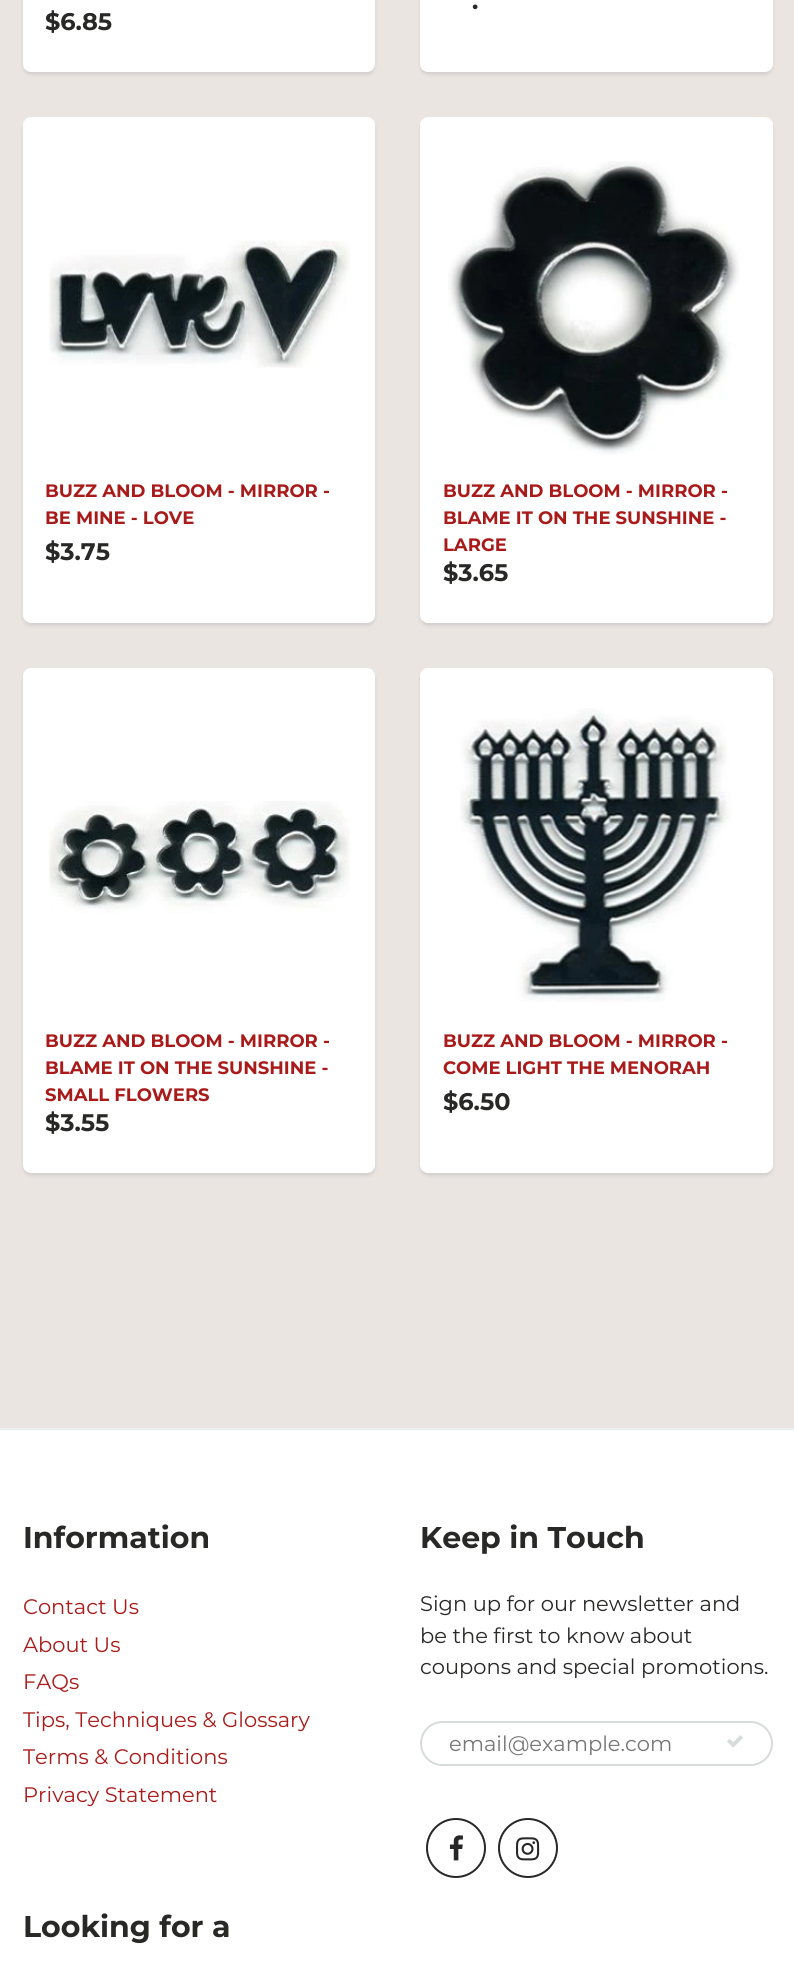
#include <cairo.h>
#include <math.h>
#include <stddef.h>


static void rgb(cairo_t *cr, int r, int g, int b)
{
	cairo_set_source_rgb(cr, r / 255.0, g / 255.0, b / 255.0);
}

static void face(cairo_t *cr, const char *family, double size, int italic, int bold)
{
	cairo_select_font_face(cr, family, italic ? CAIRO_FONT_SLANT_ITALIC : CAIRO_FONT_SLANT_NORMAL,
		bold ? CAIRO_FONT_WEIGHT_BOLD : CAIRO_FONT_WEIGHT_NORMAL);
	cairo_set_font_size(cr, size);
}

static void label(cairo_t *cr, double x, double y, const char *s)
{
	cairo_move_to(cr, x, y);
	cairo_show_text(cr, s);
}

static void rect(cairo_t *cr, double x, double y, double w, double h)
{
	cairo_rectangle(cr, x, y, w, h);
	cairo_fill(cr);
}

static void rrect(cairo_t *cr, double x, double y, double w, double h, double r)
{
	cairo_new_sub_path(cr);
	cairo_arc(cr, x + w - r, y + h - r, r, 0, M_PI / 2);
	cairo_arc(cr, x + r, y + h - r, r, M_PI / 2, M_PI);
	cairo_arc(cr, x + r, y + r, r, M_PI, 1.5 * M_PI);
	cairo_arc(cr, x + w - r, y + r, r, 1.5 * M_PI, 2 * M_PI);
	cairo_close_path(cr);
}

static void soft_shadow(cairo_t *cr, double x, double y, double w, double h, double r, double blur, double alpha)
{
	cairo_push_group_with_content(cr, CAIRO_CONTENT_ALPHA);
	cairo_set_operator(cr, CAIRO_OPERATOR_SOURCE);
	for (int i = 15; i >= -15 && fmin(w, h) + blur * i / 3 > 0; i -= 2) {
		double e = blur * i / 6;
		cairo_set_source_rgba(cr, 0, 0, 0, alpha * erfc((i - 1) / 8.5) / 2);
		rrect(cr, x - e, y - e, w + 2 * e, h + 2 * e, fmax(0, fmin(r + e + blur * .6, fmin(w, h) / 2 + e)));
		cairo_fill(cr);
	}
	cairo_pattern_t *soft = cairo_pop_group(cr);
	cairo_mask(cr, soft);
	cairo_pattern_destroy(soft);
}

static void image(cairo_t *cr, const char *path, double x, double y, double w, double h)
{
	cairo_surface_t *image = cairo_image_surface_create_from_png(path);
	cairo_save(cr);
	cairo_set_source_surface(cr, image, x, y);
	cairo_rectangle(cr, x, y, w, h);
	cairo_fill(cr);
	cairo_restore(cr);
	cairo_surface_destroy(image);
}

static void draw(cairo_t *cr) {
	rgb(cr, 255, 255, 255);
	cairo_paint(cr);
	rgb(cr, 235, 229, 226);
	rect(cr, 0, 0, 794, 1428);
	rgb(cr, 11, 25, 28);
	soft_shadow(cr, 420, -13, 353, 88, 8, 1.5, 0.1);
	rgb(cr, 255, 255, 255);
	rrect(cr, 424, -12, 345, 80, 4);
	cairo_fill_preserve(cr);
	cairo_set_line_width(cr, 8);
	cairo_stroke(cr);
	face(cr, "Montserrat", 24, 0, 1);
	rgb(cr, 40, 40, 39);
	label(cr, 472, 9, ".");
	rgb(cr, 11, 25, 28);
	soft_shadow(cr, 23, -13, 352, 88, 8, 1.5, 0.1);
	rgb(cr, 255, 255, 255);
	rrect(cr, 27, -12, 344, 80, 4);
	cairo_fill_preserve(cr);
	cairo_stroke(cr);
	rgb(cr, 40, 40, 39);
	label(cr, 45, 30, "$6.85");
	rgb(cr, 11, 25, 28);
	soft_shadow(cr, 23, 120, 352, 506, 8, 1.5, 0.1);
	rgb(cr, 255, 255, 255);
	rrect(cr, 27, 121, 344, 498, 4);
	cairo_fill_preserve(cr);
	cairo_stroke(cr);
	image(cr, "image0.png", 49, 240, 301, 128);
	face(cr, "Montserrat", 18, 0, 1);
	rgb(cr, 169, 27, 26);
	label(cr, 45, 497, "BUZZ AND BLOOM - MIRROR -");
	label(cr, 45, 524, "BE MINE - LOVE");
	face(cr, "Montserrat", 24, 0, 1);
	rgb(cr, 40, 40, 39);
	label(cr, 45, 560, "$3.75");
	rgb(cr, 11, 25, 28);
	soft_shadow(cr, 420, 120, 353, 506, 8, 1.5, 0.1);
	rgb(cr, 255, 255, 255);
	rrect(cr, 424, 121, 345, 498, 4);
	cairo_fill_preserve(cr);
	cairo_stroke(cr);
	image(cr, "image1.png", 448, 161, 292, 294);
	face(cr, "Montserrat", 18, 0, 1);
	rgb(cr, 169, 27, 26);
	label(cr, 443, 497, "BUZZ AND BLOOM - MIRROR -");
	label(cr, 443, 524, "BLAME IT ON THE SUNSHINE -");
	label(cr, 443, 551, "LARGE");
	face(cr, "Montserrat", 24, 0, 1);
	rgb(cr, 40, 40, 39);
	label(cr, 443, 581, "$3.65");
	rgb(cr, 11, 25, 28);
	soft_shadow(cr, 23, 671, 352, 505, 8, 1.5, 0.1);
	rgb(cr, 255, 255, 255);
	rrect(cr, 27, 672, 344, 497, 4);
	cairo_fill_preserve(cr);
	cairo_stroke(cr);
	image(cr, "image2.png", 49, 801, 301, 112);
	face(cr, "Montserrat", 18, 0, 1);
	rgb(cr, 169, 27, 26);
	label(cr, 45, 1047, "BUZZ AND BLOOM - MIRROR -");
	label(cr, 45, 1074, "BLAME IT ON THE SUNSHINE -");
	label(cr, 45, 1101, "SMALL FLOWERS");
	face(cr, "Montserrat", 24, 0, 1);
	rgb(cr, 40, 40, 39);
	label(cr, 45, 1131, "$3.55");
	rgb(cr, 11, 25, 28);
	soft_shadow(cr, 420, 671, 353, 505, 8, 1.5, 0.1);
	rgb(cr, 255, 255, 255);
	rrect(cr, 424, 672, 345, 497, 4);
	cairo_fill_preserve(cr);
	cairo_stroke(cr);
	image(cr, "image3.png", 460, 708, 271, 294);
	face(cr, "Montserrat", 18, 0, 1);
	rgb(cr, 169, 27, 26);
	label(cr, 443, 1047, "BUZZ AND BLOOM - MIRROR -");
	label(cr, 443, 1074, "COME LIGHT THE MENORAH");
	face(cr, "Montserrat", 24, 0, 1);
	rgb(cr, 40, 40, 39);
	label(cr, 443, 1110, "$6.50");
	rgb(cr, 236, 239, 239);
	rect(cr, 0, 1428, 794, 2);
	face(cr, "Montserrat", 30, 0, 1);
	rgb(cr, 40, 40, 39);
	label(cr, 23, 1548, "Information");
	face(cr, "Montserrat", 21, 0, 0);
	rgb(cr, 169, 27, 26);
	label(cr, 23, 1614, "Contact Us");
	label(cr, 23, 1652, "About Us");
	label(cr, 23, 1689, "FAQs");
	label(cr, 23, 1727, "Tips, Techniques & Glossary");
	label(cr, 23, 1764, "Terms & Conditions");
	label(cr, 23, 1802, "Privacy Statement");
	face(cr, "Montserrat", 30, 0, 1);
	rgb(cr, 40, 40, 39);
	label(cr, 420, 1548, "Keep in Touch");
	face(cr, "Montserrat", 21, 0, 0);
	label(cr, 420, 1611, "Sign up for our newsletter and");
	label(cr, 420, 1643, "be the first to know about");
	label(cr, 420, 1674, "coupons and special promotions.");
	rrect(cr, 421, 1722, 351, 43, 21.5);
	rgb(cr, 215, 219, 219);
	cairo_set_line_width(cr, 2);
	cairo_stroke(cr);
	rgb(cr, 117, 117, 117);
	label(cr, 449, 1751, "email@example.com");
	image(cr, "image4.png", 727, 1735, 16, 13);
	cairo_arc(cr, 456, 1848, 29, 0, 2 * M_PI);
	rgb(cr, 40, 39, 39);
	cairo_stroke(cr);
	image(cr, "image5.png", 449, 1835, 14, 26);
	cairo_arc(cr, 528, 1848, 29, 0, 2 * M_PI);
	cairo_stroke(cr);
	image(cr, "image6.png", 516, 1837, 24, 24);
	face(cr, "Montserrat", 30, 0, 1);
	rgb(cr, 40, 40, 39);
	label(cr, 23, 1937, "Looking for a");
}

int main(void) {
	cairo_surface_t *surface = cairo_image_surface_create(CAIRO_FORMAT_RGB24, 794, 1962);
	cairo_t *cr = cairo_create(surface);
	cairo_font_options_t *options = cairo_font_options_create();
	cairo_font_options_set_hint_metrics(options, CAIRO_HINT_METRICS_OFF);
	cairo_font_options_set_hint_style(options, CAIRO_HINT_STYLE_NONE);
	cairo_set_font_options(cr, options);
	cairo_set_miter_limit(cr, 4);
	draw(cr);
	cairo_surface_write_to_png(surface, "render.png");
	cairo_font_options_destroy(options);
	cairo_destroy(cr);
	cairo_surface_destroy(surface);
	return 0;
}
